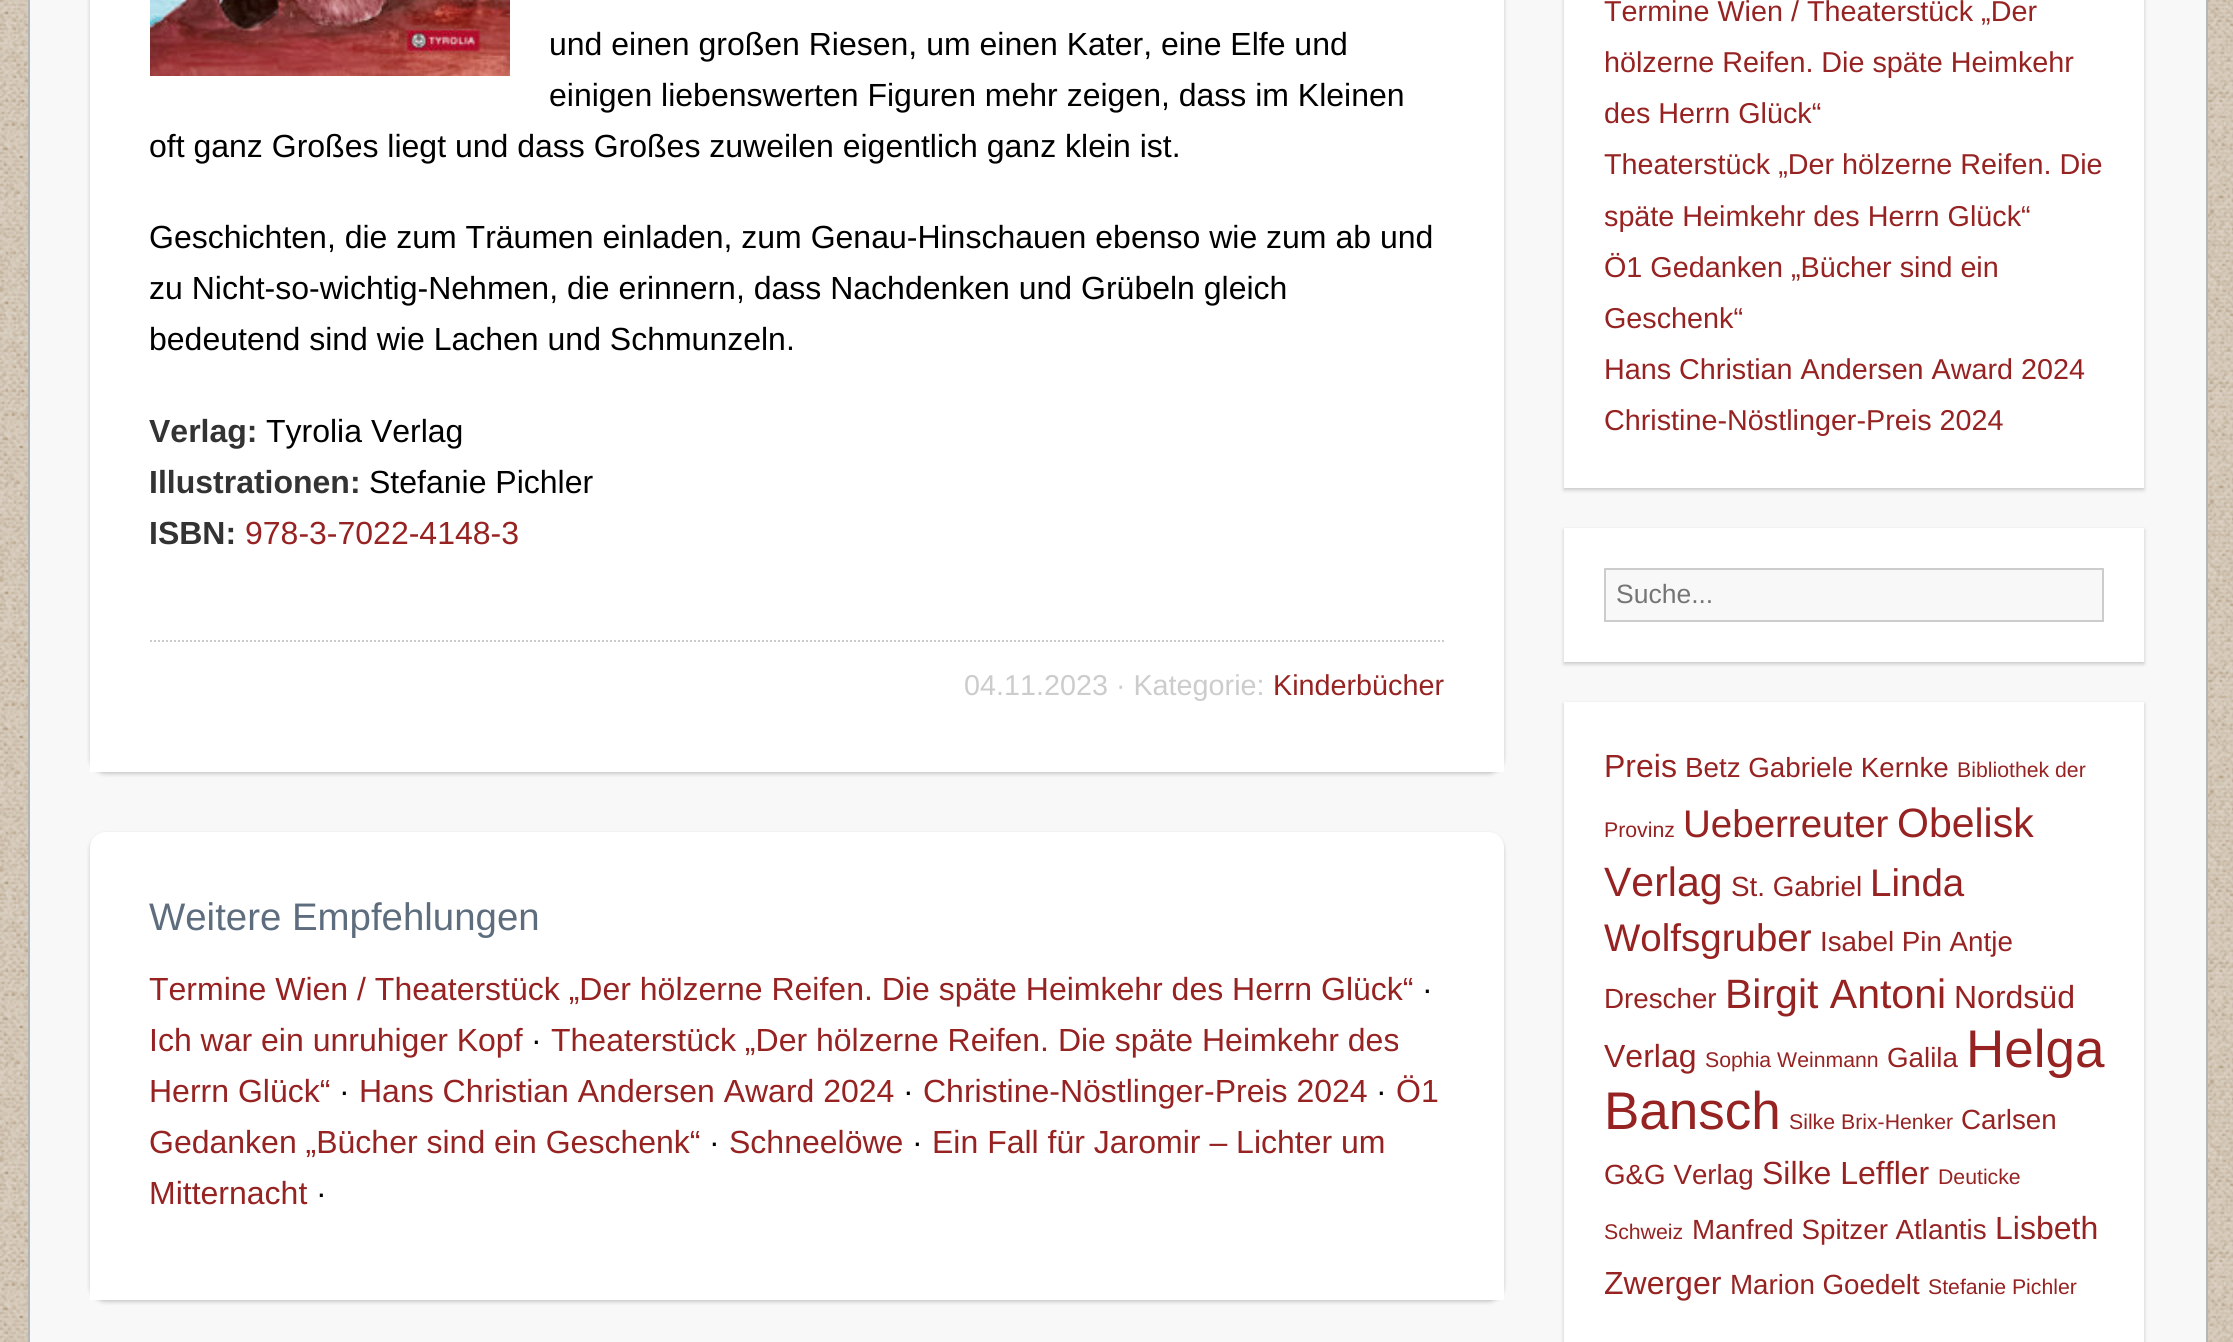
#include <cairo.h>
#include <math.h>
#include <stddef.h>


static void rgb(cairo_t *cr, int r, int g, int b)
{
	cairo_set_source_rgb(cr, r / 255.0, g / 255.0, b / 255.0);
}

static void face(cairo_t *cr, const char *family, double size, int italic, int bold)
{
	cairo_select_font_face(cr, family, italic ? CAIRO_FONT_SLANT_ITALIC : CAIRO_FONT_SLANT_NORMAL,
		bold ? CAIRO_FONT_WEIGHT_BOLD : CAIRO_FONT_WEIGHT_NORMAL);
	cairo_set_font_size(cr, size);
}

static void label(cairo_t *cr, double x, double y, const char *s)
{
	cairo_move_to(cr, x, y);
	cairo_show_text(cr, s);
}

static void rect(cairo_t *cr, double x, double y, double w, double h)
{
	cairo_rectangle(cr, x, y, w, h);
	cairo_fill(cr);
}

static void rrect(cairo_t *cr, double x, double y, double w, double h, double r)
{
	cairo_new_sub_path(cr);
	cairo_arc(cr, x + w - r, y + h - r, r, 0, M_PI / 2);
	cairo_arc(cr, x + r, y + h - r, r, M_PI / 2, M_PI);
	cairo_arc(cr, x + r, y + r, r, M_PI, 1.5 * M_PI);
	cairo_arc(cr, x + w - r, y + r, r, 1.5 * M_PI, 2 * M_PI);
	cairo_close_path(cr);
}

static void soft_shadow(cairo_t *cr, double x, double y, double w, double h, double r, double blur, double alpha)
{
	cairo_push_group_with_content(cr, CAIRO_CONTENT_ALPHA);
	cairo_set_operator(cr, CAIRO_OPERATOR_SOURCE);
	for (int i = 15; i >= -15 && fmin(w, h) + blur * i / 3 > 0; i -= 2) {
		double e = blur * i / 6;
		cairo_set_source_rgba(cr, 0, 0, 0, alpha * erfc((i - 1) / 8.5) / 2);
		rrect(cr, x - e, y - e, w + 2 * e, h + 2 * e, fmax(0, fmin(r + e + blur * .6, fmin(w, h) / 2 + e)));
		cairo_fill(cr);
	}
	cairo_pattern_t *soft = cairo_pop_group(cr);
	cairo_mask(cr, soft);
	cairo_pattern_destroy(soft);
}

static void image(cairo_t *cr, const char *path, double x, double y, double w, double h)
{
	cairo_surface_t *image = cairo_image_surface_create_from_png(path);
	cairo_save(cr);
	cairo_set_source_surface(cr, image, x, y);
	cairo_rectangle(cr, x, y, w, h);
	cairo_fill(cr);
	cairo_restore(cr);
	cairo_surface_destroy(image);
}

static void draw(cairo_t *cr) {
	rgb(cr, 255, 255, 255);
	cairo_paint(cr);
	image(cr, "image0.png", 0, 0, 2233, 1342);
	rgb(cr, 248, 248, 248);
	cairo_rectangle(cr, 29, -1, 2178, 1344);
	cairo_fill_preserve(cr);
	rgb(cr, 179, 182, 183);
	cairo_stroke(cr);
	rgb(cr, 0, 0, 0);
	soft_shadow(cr, 90, -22, 1414, 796, 16, 2, 0.2);
	rgb(cr, 255, 255, 255);
	rect(cr, 90, 0, 1414, 772);
	image(cr, "image1.png", 150, 0, 360, 76);
	face(cr, "Liberation Sans", 32, 0, 0);
	rgb(cr, 0, 0, 0);
	label(cr, 549, 55, "und einen großen Riesen, um einen Kater, eine Elfe und");
	label(cr, 549, 106, "einigen liebenswerten Figuren mehr zeigen, dass im Kleinen");
	label(cr, 149, 157, "oft ganz Großes liegt und dass Großes zuweilen eigentlich ganz klein ist.");
	label(cr, 149, 248, "Geschichten, die zum Träumen einladen, zum Genau-Hinschauen ebenso wie zum ab und");
	label(cr, 149, 299, "zu Nicht-so-wichtig-Nehmen, die erinnern, dass Nachdenken und Grübeln gleich");
	label(cr, 149, 350, "bedeutend sind wie Lachen und Schmunzeln.");
	face(cr, "Liberation Sans", 32, 0, 1);
	rgb(cr, 51, 51, 51);
	label(cr, 149, 442, "Verlag:");
	face(cr, "Liberation Sans", 32, 0, 0);
	rgb(cr, 0, 0, 0);
	label(cr, 266, 442, "Tyrolia Verlag");
	face(cr, "Liberation Sans", 32, 0, 1);
	rgb(cr, 51, 51, 51);
	label(cr, 149, 493, "Illustrationen:");
	face(cr, "Liberation Sans", 32, 0, 0);
	rgb(cr, 0, 0, 0);
	label(cr, 369, 493, "Stefanie Pichler");
	face(cr, "Liberation Sans", 32, 0, 1);
	rgb(cr, 51, 51, 51);
	label(cr, 149, 544, "ISBN:");
	face(cr, "Liberation Sans", 32, 0, 0);
	rgb(cr, 150, 34, 34);
	label(cr, 245, 544, "978-3-7022-4148-3");
	cairo_new_path(cr);
	cairo_move_to(cr, 150, 641);
	cairo_line_to(cr, 1444, 641);
	rgb(cr, 204, 204, 204);
	cairo_set_dash(cr, (double[]){2, 2}, 2, 0);
	cairo_stroke(cr);
	face(cr, "Liberation Sans", 28.75, 0, 0);
	label(cr, 964, 695, "04.11.2023 · Kategorie:");
	rgb(cr, 150, 34, 34);
	label(cr, 1273, 695, "Kinderbücher");
	rgb(cr, 0, 0, 0);
	soft_shadow(cr, 90, 834, 1414, 468, 16, 2, 0.2);
	rgb(cr, 255, 255, 255);
	cairo_new_path(cr);
	cairo_move_to(cr, 106, 832);
	cairo_line_to(cr, 1488, 832);
	cairo_curve_to(cr, 1497, 832, 1504, 839, 1504, 848);
	cairo_line_to(cr, 1504, 1300);
	cairo_line_to(cr, 90, 1300);
	cairo_line_to(cr, 90, 848);
	cairo_curve_to(cr, 90, 839, 97, 832, 106, 832);
	cairo_close_path(cr);
	cairo_fill(cr);
	face(cr, "Liberation Sans", 38.4, 0, 0);
	rgb(cr, 93, 109, 126);
	label(cr, 149, 930, "Weitere Empfehlungen");
	face(cr, "Liberation Sans", 32, 0, 0);
	rgb(cr, 150, 34, 34);
	label(cr, 149, 1000, "Termine Wien / Theaterstück „Der hölzerne Reifen. Die späte Heimkehr des Herrn Glück“");
	rgb(cr, 0, 0, 0);
	label(cr, 1422, 1000, "·");
	rgb(cr, 150, 34, 34);
	label(cr, 149, 1051, "Ich war ein unruhiger Kopf");
	rgb(cr, 0, 0, 0);
	label(cr, 531, 1051, "·");
	rgb(cr, 150, 34, 34);
	label(cr, 551, 1051, "Theaterstück „Der hölzerne Reifen. Die späte Heimkehr des");
	label(cr, 149, 1102, "Herrn Glück“");
	rgb(cr, 0, 0, 0);
	label(cr, 339, 1102, "·");
	rgb(cr, 150, 34, 34);
	label(cr, 359, 1102, "Hans Christian Andersen Award 2024");
	rgb(cr, 0, 0, 0);
	label(cr, 903, 1102, "·");
	rgb(cr, 150, 34, 34);
	label(cr, 923, 1102, "Christine-Nöstlinger-Preis 2024");
	rgb(cr, 0, 0, 0);
	label(cr, 1376, 1102, "·");
	rgb(cr, 150, 34, 34);
	label(cr, 1396, 1102, "Ö1");
	label(cr, 149, 1153, "Gedanken „Bücher sind ein Geschenk“");
	rgb(cr, 0, 0, 0);
	label(cr, 709, 1153, "·");
	rgb(cr, 150, 34, 34);
	label(cr, 729, 1153, "Schneelöwe");
	rgb(cr, 0, 0, 0);
	label(cr, 912, 1153, "·");
	rgb(cr, 150, 34, 34);
	label(cr, 932, 1153, "Ein Fall für Jaromir – Lichter um");
	label(cr, 149, 1204, "Mitternacht");
	rgb(cr, 0, 0, 0);
	label(cr, 316, 1204, "·");
	rgb(cr, 0, 0, 0);
	soft_shadow(cr, 1564, -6, 580, 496, 0, 2, 0.2);
	rgb(cr, 255, 255, 255);
	rect(cr, 1564, 0, 580, 488);
	face(cr, "Liberation Sans", 28.75, 0, 0);
	rgb(cr, 150, 34, 34);
	label(cr, 1604, 21, "Termine Wien / Theaterstück „Der");
	label(cr, 1604, 72, "hölzerne Reifen. Die späte Heimkehr");
	label(cr, 1604, 123, "des Herrn Glück“");
	label(cr, 1604, 174, "Theaterstück „Der hölzerne Reifen. Die");
	label(cr, 1604, 226, "späte Heimkehr des Herrn Glück“");
	label(cr, 1604, 277, "Ö1 Gedanken „Bücher sind ein");
	label(cr, 1604, 328, "Geschenk“");
	label(cr, 1604, 379, "Hans Christian Andersen Award 2024");
	label(cr, 1604, 430, "Christine-Nöstlinger-Preis 2024");
	rgb(cr, 0, 0, 0);
	soft_shadow(cr, 1564, 530, 580, 134, 0, 2, 0.2);
	rgb(cr, 255, 255, 255);
	rect(cr, 1564, 528, 580, 134);
	rgb(cr, 248, 248, 248);
	cairo_rectangle(cr, 1605, 569, 498, 52);
	cairo_fill_preserve(cr);
	rgb(cr, 204, 204, 204);
	cairo_set_dash(cr, NULL, 0, 0);
	cairo_stroke(cr);
	face(cr, "Liberation Sans", 26.5, 0, 0);
	rgb(cr, 117, 117, 117);
	label(cr, 1616, 603, "Suche...");
	rgb(cr, 0, 0, 0);
	soft_shadow(cr, 1564, 704, 580, 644, 0, 2, 0.2);
	rgb(cr, 255, 255, 255);
	rect(cr, 1564, 702, 580, 640);
	face(cr, "Liberation Sans", 32, 0, 0);
	rgb(cr, 150, 34, 34);
	label(cr, 1604, 777, "Preis");
	face(cr, "Liberation Sans", 27.75, 0, 0);
	label(cr, 1685, 777, "Betz Gabriele Kernke");
	face(cr, "Liberation Sans", 21.25, 0, 0);
	label(cr, 1957, 777, "Bibliothek der");
	label(cr, 1604, 837, "Provinz");
	face(cr, "Liberation Sans", 38.5, 0, 0);
	label(cr, 1683, 837, "Ueberreuter");
	face(cr, "Liberation Sans", 41, 0, 0);
	label(cr, 1897, 837, "Obelisk");
	label(cr, 1604, 896, "Verlag");
	face(cr, "Liberation Sans", 27.75, 0, 0);
	label(cr, 1731, 896, "St. Gabriel");
	face(cr, "Liberation Sans", 38.5, 0, 0);
	label(cr, 1870, 896, "Linda");
	label(cr, 1604, 951, "Wolfsgruber");
	face(cr, "Liberation Sans", 27.75, 0, 0);
	label(cr, 1820, 951, "Isabel Pin Antje");
	label(cr, 1604, 1008, "Drescher");
	face(cr, "Liberation Sans", 41, 0, 0);
	label(cr, 1725, 1008, "Birgit Antoni");
	face(cr, "Liberation Sans", 32, 0, 0);
	label(cr, 1954, 1008, "Nordsüd");
	label(cr, 1604, 1067, "Verlag");
	face(cr, "Liberation Sans", 21.25, 0, 0);
	label(cr, 1705, 1067, "Sophia Weinmann");
	face(cr, "Liberation Sans", 27.75, 0, 0);
	label(cr, 1887, 1067, "Galila");
	face(cr, "Liberation Sans", 53, 0, 0);
	label(cr, 1966, 1067, "Helga");
	label(cr, 1604, 1129, "Bansch");
	face(cr, "Liberation Sans", 21.25, 0, 0);
	label(cr, 1789, 1129, "Silke Brix-Henker");
	face(cr, "Liberation Sans", 27.75, 0, 0);
	label(cr, 1961, 1129, "Carlsen");
	label(cr, 1604, 1184, "G&G Verlag");
	face(cr, "Liberation Sans", 32, 0, 0);
	label(cr, 1762, 1184, "Silke Leffler");
	face(cr, "Liberation Sans", 21.25, 0, 0);
	label(cr, 1938, 1184, "Deuticke");
	label(cr, 1604, 1239, "Schweiz");
	face(cr, "Liberation Sans", 27.75, 0, 0);
	label(cr, 1692, 1239, "Manfred Spitzer Atlantis");
	face(cr, "Liberation Sans", 32, 0, 0);
	label(cr, 1995, 1239, "Lisbeth");
	label(cr, 1604, 1294, "Zwerger");
	face(cr, "Liberation Sans", 27.75, 0, 0);
	label(cr, 1730, 1294, "Marion Goedelt");
	face(cr, "Liberation Sans", 21.25, 0, 0);
	label(cr, 1928, 1294, "Stefanie Pichler");
}

int main(void) {
	cairo_surface_t *surface = cairo_image_surface_create(CAIRO_FORMAT_RGB24, 2233, 1342);
	cairo_t *cr = cairo_create(surface);
	cairo_font_options_t *options = cairo_font_options_create();
	cairo_font_options_set_hint_metrics(options, CAIRO_HINT_METRICS_OFF);
	cairo_font_options_set_hint_style(options, CAIRO_HINT_STYLE_NONE);
	cairo_set_font_options(cr, options);
	cairo_set_miter_limit(cr, 4);
	draw(cr);
	cairo_surface_write_to_png(surface, "render.png");
	cairo_font_options_destroy(options);
	cairo_destroy(cr);
	cairo_surface_destroy(surface);
	return 0;
}
